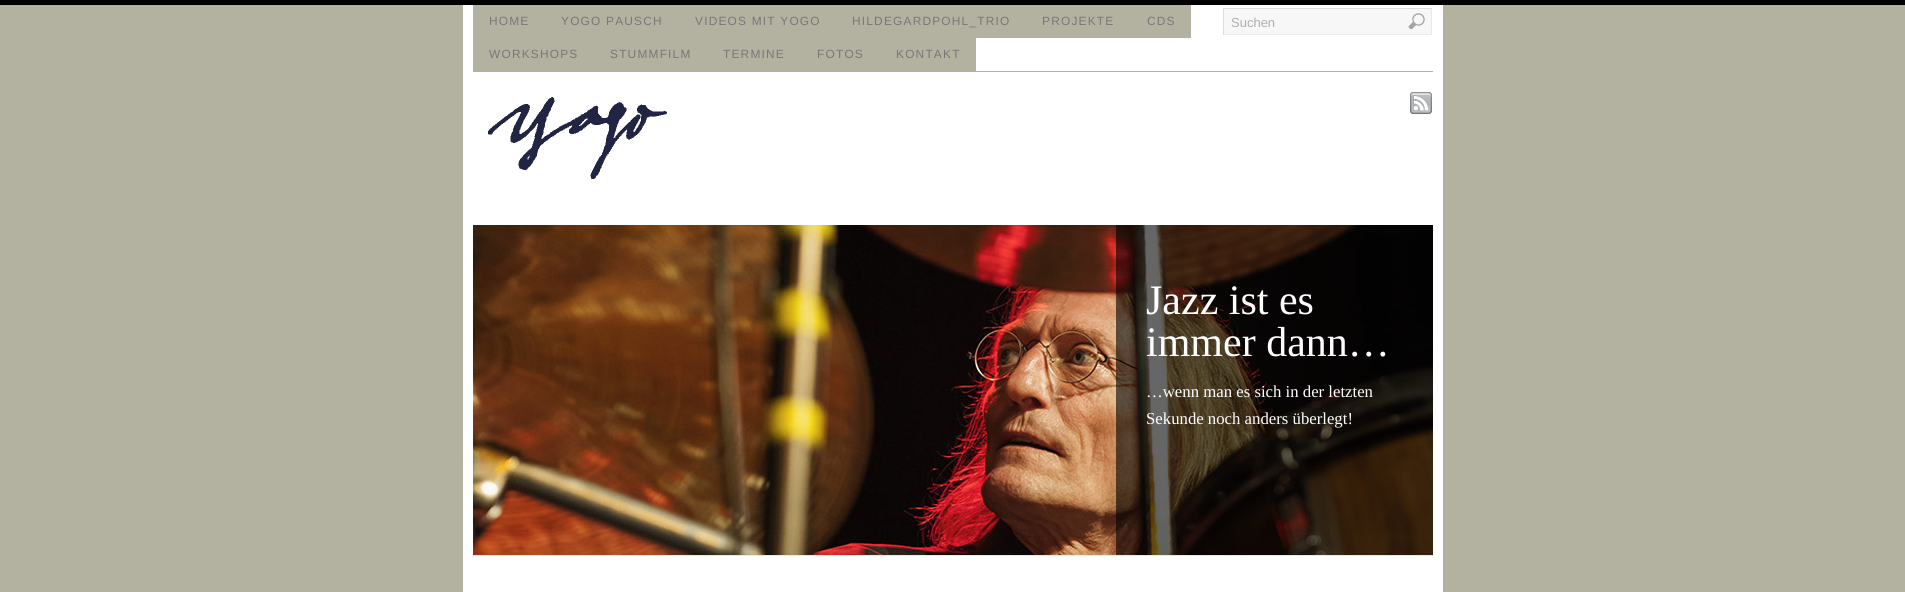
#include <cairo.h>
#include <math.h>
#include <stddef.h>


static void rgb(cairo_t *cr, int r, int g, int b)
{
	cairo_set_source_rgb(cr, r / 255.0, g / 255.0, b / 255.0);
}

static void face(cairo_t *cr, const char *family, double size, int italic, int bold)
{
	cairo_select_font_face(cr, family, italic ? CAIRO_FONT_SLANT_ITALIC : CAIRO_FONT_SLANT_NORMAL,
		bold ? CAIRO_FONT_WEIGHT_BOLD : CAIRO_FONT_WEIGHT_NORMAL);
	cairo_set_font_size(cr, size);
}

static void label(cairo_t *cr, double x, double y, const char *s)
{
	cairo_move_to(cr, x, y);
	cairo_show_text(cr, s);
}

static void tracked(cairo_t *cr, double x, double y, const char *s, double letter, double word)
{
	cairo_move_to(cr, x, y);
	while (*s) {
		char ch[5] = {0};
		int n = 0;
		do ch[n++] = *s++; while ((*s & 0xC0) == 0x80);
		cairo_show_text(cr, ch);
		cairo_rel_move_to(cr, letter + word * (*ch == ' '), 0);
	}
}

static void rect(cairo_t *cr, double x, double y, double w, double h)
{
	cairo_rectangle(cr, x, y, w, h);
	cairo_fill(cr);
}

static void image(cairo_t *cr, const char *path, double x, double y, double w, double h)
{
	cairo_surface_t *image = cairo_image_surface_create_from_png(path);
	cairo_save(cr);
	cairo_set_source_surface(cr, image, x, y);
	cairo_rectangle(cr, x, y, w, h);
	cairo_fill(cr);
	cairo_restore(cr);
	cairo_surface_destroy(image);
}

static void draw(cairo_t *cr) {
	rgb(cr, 0, 0, 0);
	cairo_paint(cr);
	rgb(cr, 179, 178, 161);
	rect(cr, 0, 5, 1905, 587);
	rgb(cr, 255, 255, 255);
	rect(cr, 463, 5, 980, 587);
	rgb(cr, 179, 178, 161);
	rect(cr, 473, 71, 960, 1);
	rect(cr, 473, 5, 718, 33);
	face(cr, "Liberation Sans", 11.9, 0, 0);
	rgb(cr, 119, 119, 119);
	tracked(cr, 489, 25, "HOME", 1.2, 0);
	tracked(cr, 561, 25, "YOGO PAUSCH", 1.2, 0);
	tracked(cr, 695, 25, "VIDEOS MIT YOGO", 1.2, 0);
	tracked(cr, 852, 25, "HILDEGARDPOHL_TRIO", 1.2, 0);
	tracked(cr, 1042, 25, "PROJEKTE", 1.2, 0);
	tracked(cr, 1147, 25, "CDS", 1.2, 0);
	rgb(cr, 179, 178, 161);
	rect(cr, 473, 38, 503, 33);
	rgb(cr, 119, 119, 119);
	tracked(cr, 489, 58, "WORKSHOPS", 1.2, 0);
	tracked(cr, 610, 58, "STUMMFILM", 1.2, 0);
	tracked(cr, 723, 58, "TERMINE", 1.2, 0);
	tracked(cr, 817, 58, "FOTOS", 1.2, 0);
	tracked(cr, 896, 58, "KONTAKT", 1.2, 0);
	rgb(cr, 247, 247, 247);
	rect(cr, 1224, 9, 207, 25);
	rgb(cr, 221, 221, 221);
	rect(cr, 1223, 8, 209, 1);
	rgb(cr, 233, 233, 233);
	rect(cr, 1431, 8, 1, 27);
	rect(cr, 1223, 34, 209, 1);
	rgb(cr, 221, 221, 221);
	rect(cr, 1223, 8, 1, 27);
	face(cr, "Liberation Sans", 13, 0, 0);
	rgb(cr, 175, 175, 175);
	label(cr, 1231, 27, "Suchen");
	image(cr, "image0.png", 1408, 13, 17, 16);
	image(cr, "image1.png", 488, 97, 179, 82);
	image(cr, "image2.png", 1410, 92, 22, 22);
	image(cr, "image3.png", 473, 225, 960, 330);
	cairo_set_source_rgba(cr, 0, 0, 0, 0.6);
	rect(cr, 1116, 225, 317, 330);
	face(cr, "Liberation Serif", 42, 0, 0);
	rgb(cr, 255, 255, 255);
	label(cr, 1146, 314, "Jazz ist es");
	label(cr, 1146, 356, "immer dann…");
	face(cr, "Liberation Serif", 16.75, 0, 0);
	label(cr, 1146, 397, "…wenn man es sich in der letzten");
	label(cr, 1146, 424, "Sekunde noch anders überlegt!");
	rgb(cr, 233, 233, 233);
	rect(cr, 473, 555, 960, 1);
}

int main(void) {
	cairo_surface_t *surface = cairo_image_surface_create(CAIRO_FORMAT_RGB24, 1905, 592);
	cairo_t *cr = cairo_create(surface);
	cairo_font_options_t *options = cairo_font_options_create();
	cairo_font_options_set_hint_metrics(options, CAIRO_HINT_METRICS_OFF);
	cairo_font_options_set_hint_style(options, CAIRO_HINT_STYLE_NONE);
	cairo_set_font_options(cr, options);
	cairo_set_miter_limit(cr, 4);
	draw(cr);
	cairo_surface_write_to_png(surface, "render.png");
	cairo_font_options_destroy(options);
	cairo_destroy(cr);
	cairo_surface_destroy(surface);
	return 0;
}
